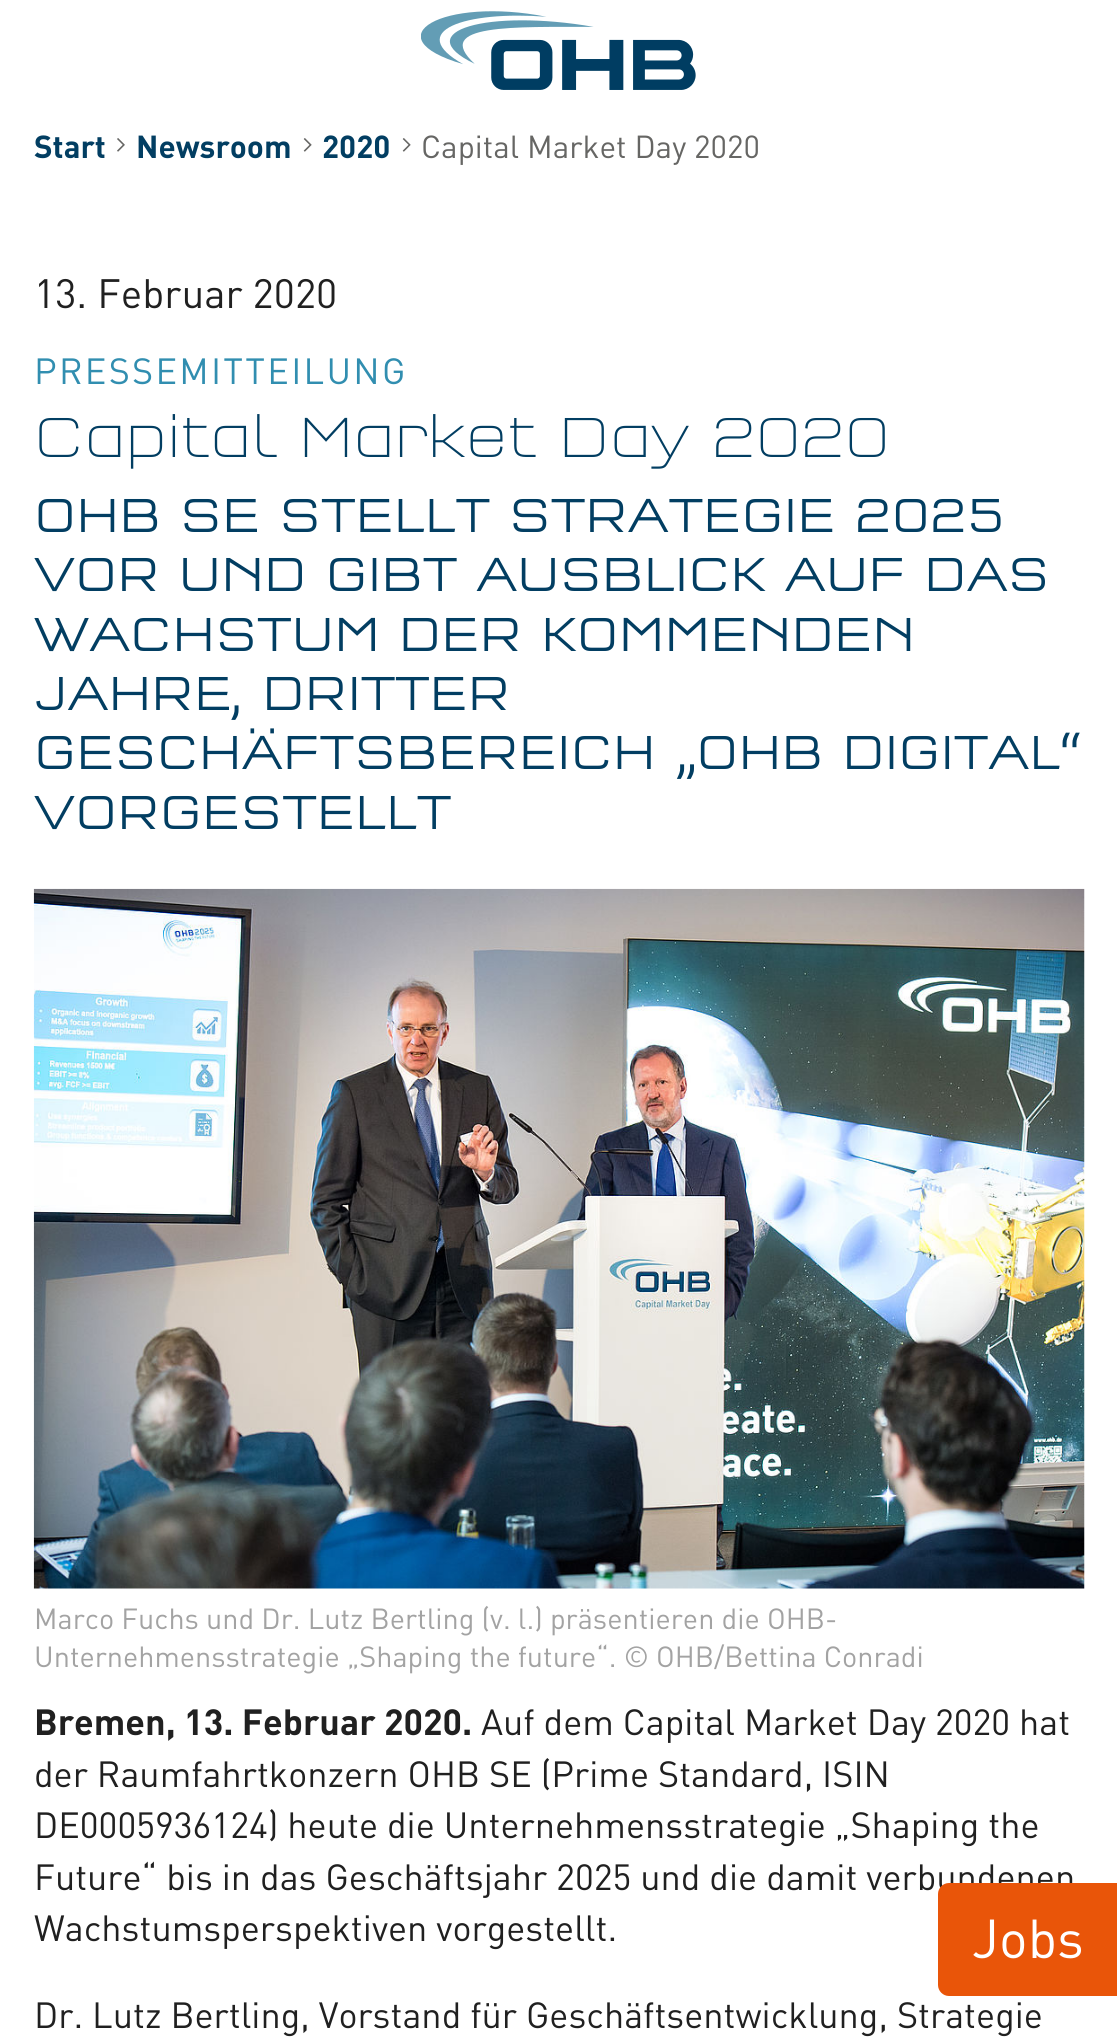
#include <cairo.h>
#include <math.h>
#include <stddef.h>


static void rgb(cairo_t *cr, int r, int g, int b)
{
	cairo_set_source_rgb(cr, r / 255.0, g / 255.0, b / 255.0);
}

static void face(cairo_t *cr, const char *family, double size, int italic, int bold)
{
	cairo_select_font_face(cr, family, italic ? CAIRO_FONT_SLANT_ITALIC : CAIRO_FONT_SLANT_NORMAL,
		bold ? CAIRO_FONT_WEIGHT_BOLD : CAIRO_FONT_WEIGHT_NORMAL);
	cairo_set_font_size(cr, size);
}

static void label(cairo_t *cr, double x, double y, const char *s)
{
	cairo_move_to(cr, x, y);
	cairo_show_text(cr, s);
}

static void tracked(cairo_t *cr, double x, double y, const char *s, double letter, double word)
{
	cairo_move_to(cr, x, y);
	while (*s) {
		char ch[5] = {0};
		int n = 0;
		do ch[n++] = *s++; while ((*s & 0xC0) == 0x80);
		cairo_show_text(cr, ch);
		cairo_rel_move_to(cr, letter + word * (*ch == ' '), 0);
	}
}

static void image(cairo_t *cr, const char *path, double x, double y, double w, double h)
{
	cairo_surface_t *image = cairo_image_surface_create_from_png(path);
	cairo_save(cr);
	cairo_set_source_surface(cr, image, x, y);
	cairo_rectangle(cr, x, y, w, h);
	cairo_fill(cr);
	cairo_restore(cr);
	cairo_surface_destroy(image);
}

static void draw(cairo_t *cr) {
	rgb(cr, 255, 255, 255);
	cairo_paint(cr);
	image(cr, "image0.png", 421, 11, 275, 79);
	face(cr, "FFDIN", 31.5, 0, 0);
	rgb(cr, 2, 62, 98);
	label(cr, 34, 158, "Start");
	image(cr, "image1.png", 117, 138, 8, 14);
	label(cr, 136, 158, "Newsroom");
	image(cr, "image2.png", 303, 138, 9, 14);
	label(cr, 322, 158, "2020");
	image(cr, "image2.png", 402, 138, 9, 14);
	face(cr, "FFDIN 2", 31.5, 0, 0);
	rgb(cr, 102, 102, 100);
	label(cr, 421, 158, "Capital Market Day 2020");
	face(cr, "FFDIN 2", 40.5, 0, 0);
	rgb(cr, 32, 32, 32);
	label(cr, 34, 308, "13. Februar 2020");
	face(cr, "FFDIN 2", 36, 0, 0);
	rgb(cr, 49, 142, 176);
	tracked(cr, 34, 384, "PRESSEMITTEILUNG", 2.25, 0);
	face(cr, "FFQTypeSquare", 58.5, 0, 0);
	rgb(cr, 2, 62, 98);
	label(cr, 34, 457, "Capital Market Day 2020");
	face(cr, "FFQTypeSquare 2", 49.5, 0, 0);
	label(cr, 34, 532, "OHB SE STELLT STRATEGIE 2025");
	label(cr, 34, 591, "VOR UND GIBT AUSBLICK AUF DAS");
	label(cr, 34, 651, "WACHSTUM DER KOMMENDEN");
	label(cr, 34, 710, "JAHRE, DRITTER");
	label(cr, 34, 769, "GESCHÄFTSBEREICH „OHB DIGITAL“");
	label(cr, 34, 829, "VORGESTELLT");
	image(cr, "image3.png", 33, 888, 1052, 701);
	face(cr, "FFDIN 2", 28.8, 0, 0);
	rgb(cr, 163, 163, 163);
	label(cr, 34, 1629, "Marco Fuchs und Dr. Lutz Bertling (v. l.) präsentieren die OHB-");
	label(cr, 34, 1667, "Unternehmensstrategie „Shaping the future“. © OHB/Bettina Conradi");
	face(cr, "FFDIN", 36, 0, 0);
	rgb(cr, 32, 32, 32);
	label(cr, 34, 1735, "Bremen, 13. Februar 2020.");
	face(cr, "FFDIN 2", 36, 0, 0);
	label(cr, 481, 1735, "Auf dem Capital Market Day 2020 hat");
	label(cr, 34, 1787, "der Raumfahrtkonzern OHB SE (Prime Standard, ISIN");
	label(cr, 34, 1838, "DE0005936124) heute die Unternehmensstrategie „Shaping the");
	label(cr, 34, 1890, "Future“ bis in das Geschäftsjahr 2025 und die damit verbundenen");
	label(cr, 34, 1941, "Wachstumsperspektiven vorgestellt.");
	label(cr, 34, 2028, "Dr. Lutz Bertling, Vorstand für Geschäftsentwicklung, Strategie");
	rgb(cr, 233, 85, 9);
	cairo_new_path(cr);
	cairo_move_to(cr, 949, 1883);
	cairo_line_to(cr, 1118, 1883);
	cairo_line_to(cr, 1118, 1996);
	cairo_line_to(cr, 949, 1996);
	cairo_curve_to(cr, 943, 1996, 938, 1991, 938, 1985);
	cairo_line_to(cr, 938, 1894);
	cairo_curve_to(cr, 938, 1888, 943, 1883, 949, 1883);
	cairo_close_path(cr);
	cairo_fill(cr);
	face(cr, "FFDIN 2", 54, 0, 0);
	rgb(cr, 255, 255, 255);
	label(cr, 972, 1958, "Jobs");
}

int main(void) {
	cairo_surface_t *surface = cairo_image_surface_create(CAIRO_FORMAT_RGB24, 1117, 2039);
	cairo_t *cr = cairo_create(surface);
	cairo_font_options_t *options = cairo_font_options_create();
	cairo_font_options_set_hint_metrics(options, CAIRO_HINT_METRICS_OFF);
	cairo_font_options_set_hint_style(options, CAIRO_HINT_STYLE_NONE);
	cairo_set_font_options(cr, options);
	cairo_set_miter_limit(cr, 4);
	draw(cr);
	cairo_surface_write_to_png(surface, "render.png");
	cairo_font_options_destroy(options);
	cairo_destroy(cr);
	cairo_surface_destroy(surface);
	return 0;
}
